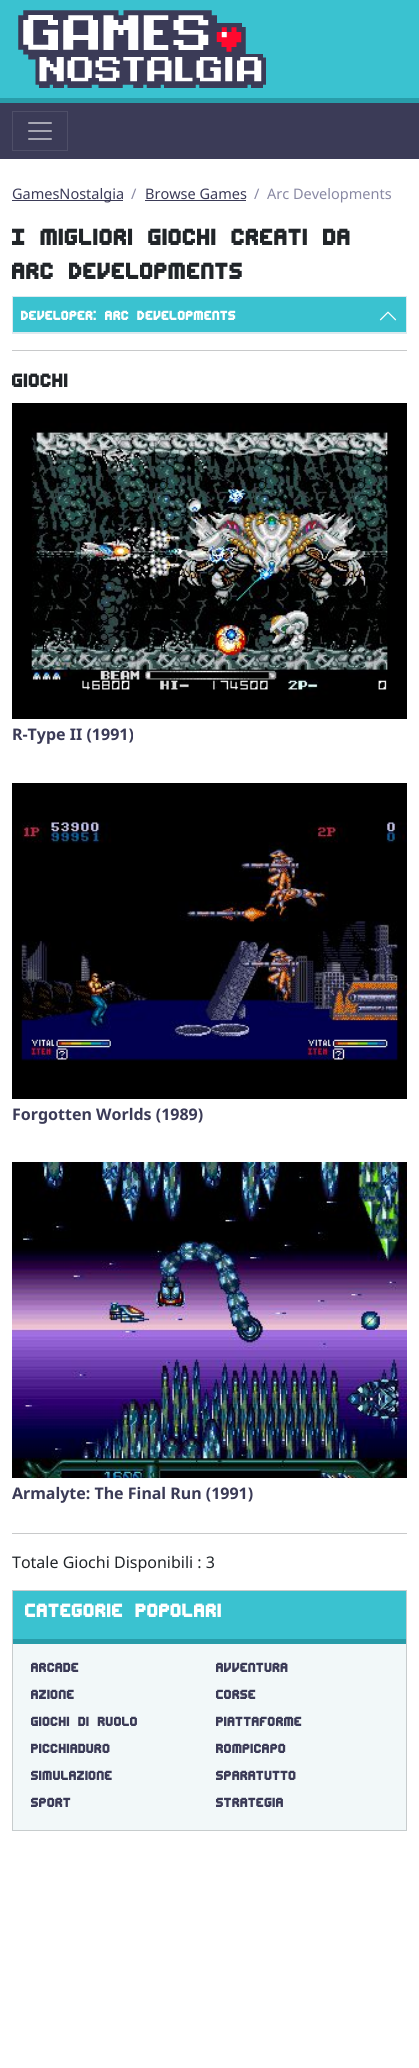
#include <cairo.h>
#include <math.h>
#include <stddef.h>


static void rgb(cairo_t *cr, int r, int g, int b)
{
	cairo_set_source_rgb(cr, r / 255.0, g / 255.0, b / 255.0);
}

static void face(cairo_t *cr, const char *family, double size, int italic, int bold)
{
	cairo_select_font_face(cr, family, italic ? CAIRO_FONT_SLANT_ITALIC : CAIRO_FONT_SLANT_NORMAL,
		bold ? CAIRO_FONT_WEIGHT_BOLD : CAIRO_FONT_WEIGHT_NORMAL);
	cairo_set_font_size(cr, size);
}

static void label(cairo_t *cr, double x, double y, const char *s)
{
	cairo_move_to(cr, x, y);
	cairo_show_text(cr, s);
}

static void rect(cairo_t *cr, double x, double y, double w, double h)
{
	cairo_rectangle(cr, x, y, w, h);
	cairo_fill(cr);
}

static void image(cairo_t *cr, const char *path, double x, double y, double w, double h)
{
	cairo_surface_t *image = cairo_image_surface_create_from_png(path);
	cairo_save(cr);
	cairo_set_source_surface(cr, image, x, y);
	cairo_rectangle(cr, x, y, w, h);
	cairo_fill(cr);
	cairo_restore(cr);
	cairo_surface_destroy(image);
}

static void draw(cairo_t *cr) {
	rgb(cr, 255, 255, 255);
	cairo_paint(cr);
	rgb(cr, 58, 194, 208);
	rect(cr, 0, 0, 419, 98);
	rgb(cr, 40, 157, 170);
	rect(cr, 0, 98, 419, 5);
	image(cr, "image0.png", 18, 10, 248, 78);
	rgb(cr, 59, 59, 87);
	rect(cr, 0, 103, 419, 56);
	cairo_rectangle(cr, 12.5, 111.5, 55, 39);
	rgb(cr, 79, 79, 104);
	cairo_set_line_width(cr, 1);
	cairo_stroke(cr);
	image(cr, "image1.png", 28, 122, 24, 18);
	rgb(cr, 59, 59, 87);
	rect(cr, 12, 200, 111, 1);
	face(cr, "Noto Sans", 14.5, 0, 0);
	label(cr, 12, 199, "GamesNostalgia");
	rgb(cr, 137, 137, 163);
	label(cr, 131, 199, "/");
	rgb(cr, 59, 59, 87);
	label(cr, 145, 199, "Browse Games");
	rect(cr, 145, 200, 101, 1);
	rgb(cr, 137, 137, 163);
	label(cr, 254, 199, "/");
	label(cr, 267, 199, "Arc Developments");
	face(cr, "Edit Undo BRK", 28.25, 0, 0);
	rgb(cr, 33, 37, 41);
	label(cr, 12, 245, "I migliori Giochi creati da");
	label(cr, 12, 279, "Arc Developments");
	cairo_rectangle(cr, 12.5, 296.5, 394, 37);
	rgb(cr, 221, 234, 239);
	cairo_stroke(cr);
	rgb(cr, 58, 194, 208);
	rect(cr, 13, 297, 393, 35);
	rgb(cr, 221, 234, 239);
	rect(cr, 13, 332, 393, 1);
	face(cr, "Edit Undo BRK", 16, 0, 0);
	rgb(cr, 255, 255, 255);
	label(cr, 21, 320, "Developer: Arc Developments");
	image(cr, "image2.png", 379, 311, 18, 10);
	rgb(cr, 200, 201, 202);
	rect(cr, 12, 350, 395, 1);
	face(cr, "Edit Undo BRK", 23.25, 0, 0);
	rgb(cr, 33, 37, 41);
	label(cr, 12, 387, "Giochi");
	image(cr, "image3.png", 12, 403, 395, 316);
	face(cr, "Noto Sans", 16, 0, 1);
	rgb(cr, 59, 59, 87);
	label(cr, 12, 740, "R-Type II (1991)");
	image(cr, "image4.png", 12, 783, 395, 316);
	label(cr, 12, 1120, "Forgotten Worlds (1989)");
	image(cr, "image5.png", 12, 1162, 395, 316);
	label(cr, 12, 1499, "Armalyte: The Final Run (1991)");
	rgb(cr, 200, 201, 202);
	rect(cr, 12, 1533, 395, 1);
	face(cr, "Noto Sans", 16, 0, 0);
	rgb(cr, 33, 37, 41);
	label(cr, 12, 1568, "Totale Giochi Disponibili : 3");
	rgb(cr, 242, 248, 249);
	rect(cr, 13, 1644, 393, 186);
	cairo_rectangle(cr, 12.5, 1590.5, 394, 240);
	rgb(cr, 199, 204, 205);
	cairo_stroke(cr);
	rgb(cr, 58, 194, 208);
	rect(cr, 13, 1591, 393, 48);
	rgb(cr, 40, 157, 170);
	rect(cr, 13, 1639, 393, 5);
	face(cr, "Edit Undo BRK", 23.25, 0, 0);
	rgb(cr, 255, 255, 255);
	label(cr, 25, 1617, "Categorie Popolari");
	face(cr, "Edit Undo BRK", 16, 0, 0);
	rgb(cr, 59, 59, 87);
	label(cr, 31, 1672, "Arcade");
	label(cr, 216, 1672, "Avventura");
	label(cr, 31, 1699, "Azione");
	label(cr, 216, 1699, "Corse");
	label(cr, 31, 1726, "Giochi di Ruolo");
	label(cr, 216, 1726, "Piattaforme");
	label(cr, 31, 1753, "Picchiaduro");
	label(cr, 216, 1753, "Rompicapo");
	label(cr, 31, 1780, "Simulazione");
	label(cr, 216, 1780, "Sparatutto");
	label(cr, 31, 1807, "Sport");
	label(cr, 216, 1807, "Strategia");
}

int main(void) {
	cairo_surface_t *surface = cairo_image_surface_create(CAIRO_FORMAT_RGB24, 419, 2068);
	cairo_t *cr = cairo_create(surface);
	cairo_font_options_t *options = cairo_font_options_create();
	cairo_font_options_set_hint_metrics(options, CAIRO_HINT_METRICS_OFF);
	cairo_font_options_set_hint_style(options, CAIRO_HINT_STYLE_NONE);
	cairo_set_font_options(cr, options);
	cairo_set_miter_limit(cr, 4);
	draw(cr);
	cairo_surface_write_to_png(surface, "render.png");
	cairo_font_options_destroy(options);
	cairo_destroy(cr);
	cairo_surface_destroy(surface);
	return 0;
}
